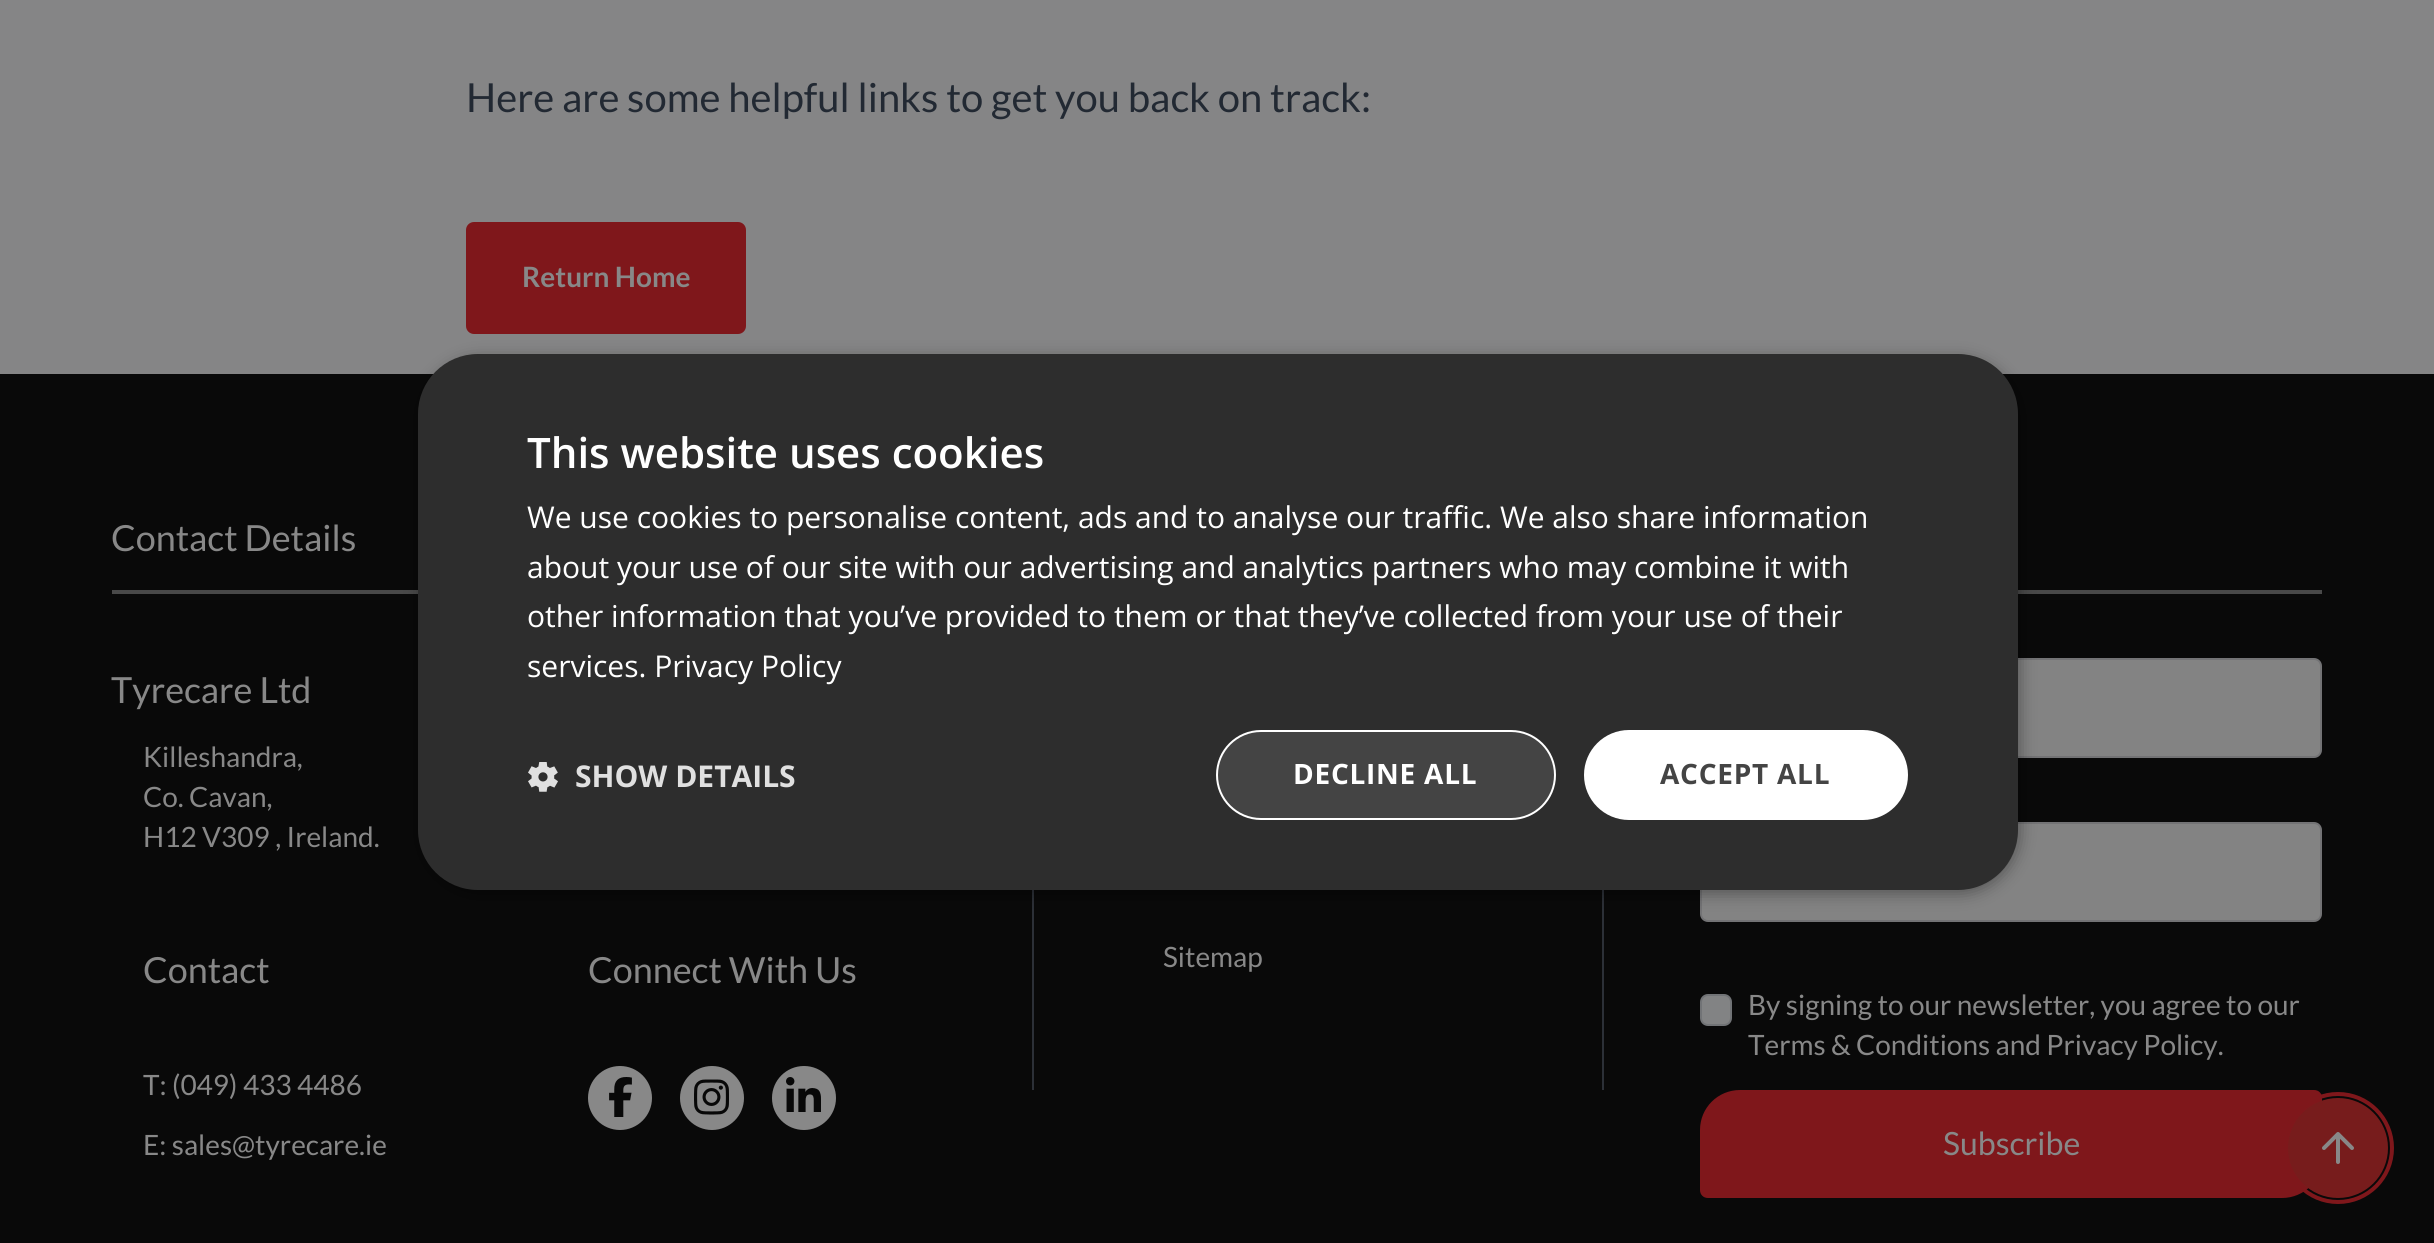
#include <cairo.h>
#include <math.h>
#include <stddef.h>


static void rgb(cairo_t *cr, int r, int g, int b)
{
	cairo_set_source_rgb(cr, r / 255.0, g / 255.0, b / 255.0);
}

static void face(cairo_t *cr, const char *family, double size, int italic, int bold)
{
	cairo_select_font_face(cr, family, italic ? CAIRO_FONT_SLANT_ITALIC : CAIRO_FONT_SLANT_NORMAL,
		bold ? CAIRO_FONT_WEIGHT_BOLD : CAIRO_FONT_WEIGHT_NORMAL);
	cairo_set_font_size(cr, size);
}

static void label(cairo_t *cr, double x, double y, const char *s)
{
	cairo_move_to(cr, x, y);
	cairo_show_text(cr, s);
}

static void tracked(cairo_t *cr, double x, double y, const char *s, double letter, double word)
{
	cairo_move_to(cr, x, y);
	while (*s) {
		char ch[5] = {0};
		int n = 0;
		do ch[n++] = *s++; while ((*s & 0xC0) == 0x80);
		cairo_show_text(cr, ch);
		cairo_rel_move_to(cr, letter + word * (*ch == ' '), 0);
	}
}

static void rect(cairo_t *cr, double x, double y, double w, double h)
{
	cairo_rectangle(cr, x, y, w, h);
	cairo_fill(cr);
}

static void rrect(cairo_t *cr, double x, double y, double w, double h, double r)
{
	cairo_new_sub_path(cr);
	cairo_arc(cr, x + w - r, y + h - r, r, 0, M_PI / 2);
	cairo_arc(cr, x + r, y + h - r, r, M_PI / 2, M_PI);
	cairo_arc(cr, x + r, y + r, r, M_PI, 1.5 * M_PI);
	cairo_arc(cr, x + w - r, y + r, r, 1.5 * M_PI, 2 * M_PI);
	cairo_close_path(cr);
}

static void soft_shadow(cairo_t *cr, double x, double y, double w, double h, double r, double blur, double alpha)
{
	cairo_push_group_with_content(cr, CAIRO_CONTENT_ALPHA);
	cairo_set_operator(cr, CAIRO_OPERATOR_SOURCE);
	for (int i = 15; i >= -15 && fmin(w, h) + blur * i / 3 > 0; i -= 2) {
		double e = blur * i / 6;
		cairo_set_source_rgba(cr, 0, 0, 0, alpha * erfc((i - 1) / 8.5) / 2);
		rrect(cr, x - e, y - e, w + 2 * e, h + 2 * e, fmax(0, fmin(r + e + blur * .6, fmin(w, h) / 2 + e)));
		cairo_fill(cr);
	}
	cairo_pattern_t *soft = cairo_pop_group(cr);
	cairo_mask(cr, soft);
	cairo_pattern_destroy(soft);
}

static void image(cairo_t *cr, const char *path, double x, double y, double w, double h)
{
	cairo_surface_t *image = cairo_image_surface_create_from_png(path);
	cairo_save(cr);
	cairo_set_source_surface(cr, image, x, y);
	cairo_rectangle(cr, x, y, w, h);
	cairo_fill(cr);
	cairo_restore(cr);
	cairo_surface_destroy(image);
}

static void draw(cairo_t *cr) {
	rgb(cr, 133, 133, 134);
	cairo_paint(cr);
	face(cr, "Lato", 40, 0, 0);
	rgb(cr, 34, 41, 51);
	label(cr, 466, 112, "Here are some helpful links to get you back on track:");
	rgb(cr, 127, 23, 27);
	rrect(cr, 466, 222, 280, 112, 8);
	cairo_fill(cr);
	face(cr, "Lato", 28, 0, 1);
	rgb(cr, 136, 136, 136);
	label(cr, 522, 287, "Return Home");
	rgb(cr, 9, 9, 9);
	rect(cr, 0, 374, 2434, 869);
	rgb(cr, 44, 48, 55);
	rect(cr, 1032, 890, 2, 200);
	rgb(cr, 73, 73, 73);
	rect(cr, 112, 590, 306, 4);
	rgb(cr, 44, 48, 55);
	rect(cr, 1602, 890, 2, 200);
	rgb(cr, 73, 73, 73);
	rect(cr, 2018, 590, 304, 4);
	rgb(cr, 131, 131, 131);
	rrect(cr, 1701, 659, 620, 98, 7);
	cairo_fill_preserve(cr);
	rgb(cr, 115, 115, 117);
	cairo_stroke(cr);
	rgb(cr, 131, 131, 131);
	rrect(cr, 1701, 823, 620, 98, 7);
	cairo_fill_preserve(cr);
	rgb(cr, 115, 115, 117);
	cairo_stroke(cr);
	rgb(cr, 0, 0, 0);
	soft_shadow(cr, 420, 358, 1600, 536, 60, 8, 0.35);
	rgb(cr, 45, 45, 45);
	rrect(cr, 418, 354, 1600, 536, 60);
	cairo_fill(cr);
	face(cr, "Open Sans SemiBold", 42, 0, 0);
	rgb(cr, 255, 255, 255);
	label(cr, 527, 468, "This website uses cookies");
	face(cr, "Open Sans", 30, 0, 0);
	label(cr, 527, 528, "We use cookies to personalise content, ads and to analyse our traffic. We also share information");
	label(cr, 527, 578, "about your use of our site with our advertising and analytics partners who may combine it with");
	label(cr, 527, 627, "other information that you’ve provided to them or that they’ve collected from your use of their");
	label(cr, 527, 677, "services. Privacy Policy");
	image(cr, "image0.png", 528, 762, 30, 30);
	face(cr, "Open Sans", 30, 0, 1);
	rgb(cr, 224, 224, 224);
	label(cr, 575, 787, "SHOW DETAILS");
	rgb(cr, 68, 68, 68);
	rrect(cr, 1217, 731, 338, 88, 44);
	cairo_fill_preserve(cr);
	rgb(cr, 255, 255, 255);
	cairo_stroke(cr);
	face(cr, "Open Sans", 28, 0, 1);
	tracked(cr, 1293, 784, "DECLINE ALL", 0.75, 0);
	rrect(cr, 1584, 730, 324, 90, 45);
	cairo_fill(cr);
	rgb(cr, 68, 68, 68);
	tracked(cr, 1660, 784, "ACCEPT ALL", 0.75, 0);
	face(cr, "Lato", 36, 0, 0);
	rgb(cr, 136, 136, 136);
	label(cr, 111, 551, "Contact Details");
	label(cr, 111, 703, "Tyrecare Ltd");
	face(cr, "Lato", 28, 0, 0);
	label(cr, 143, 767, "Killeshandra,");
	label(cr, 143, 807, "Co. Cavan,");
	label(cr, 143, 847, "H12 V309 , Ireland.");
	face(cr, "Lato", 36, 0, 0);
	label(cr, 143, 983, "Contact");
	face(cr, "Lato", 28, 0, 0);
	label(cr, 143, 1095, "T: (049) 433 4486");
	label(cr, 143, 1155, "E: sales@tyrecare.ie");
	face(cr, "Lato", 36, 0, 0);
	label(cr, 588, 983, "Connect With Us");
	cairo_new_path(cr);
	cairo_arc(cr, 620, 1098, 31, 0, 2 * M_PI);
	cairo_fill_preserve(cr);
	cairo_stroke(cr);
	image(cr, "image1.png", 609, 1077, 23, 40);
	cairo_arc(cr, 712, 1098, 31, 0, 2 * M_PI);
	cairo_fill_preserve(cr);
	cairo_stroke(cr);
	image(cr, "image2.png", 694, 1079, 35, 36);
	cairo_arc(cr, 804, 1098, 31, 0, 2 * M_PI);
	cairo_fill_preserve(cr);
	cairo_stroke(cr);
	image(cr, "image3.png", 786, 1077, 35, 35);
	face(cr, "Lato", 28, 0, 0);
	label(cr, 1163, 967, "Sitemap");
	rgb(cr, 130, 131, 132);
	rrect(cr, 1701, 995, 30, 30, 7);
	cairo_fill_preserve(cr);
	rgb(cr, 113, 115, 118);
	cairo_stroke(cr);
	rgb(cr, 136, 136, 136);
	label(cr, 1748, 1015, "By signing to our newsletter, you agree to our");
	label(cr, 1748, 1055, "Terms & Conditions and Privacy Policy.");
	rgb(cr, 127, 23, 27);
	cairo_new_path(cr);
	cairo_move_to(cr, 1740, 1093);
	cairo_line_to(cr, 2314, 1093);
	cairo_curve_to(cr, 2317, 1093, 2319, 1095, 2319, 1098);
	cairo_line_to(cr, 2319, 1158);
	cairo_curve_to(cr, 2319, 1178.5, 2302.5, 1195, 2282, 1195);
	cairo_line_to(cr, 1708, 1195);
	cairo_curve_to(cr, 1705, 1195, 1703, 1193, 1703, 1190);
	cairo_line_to(cr, 1703, 1130);
	cairo_curve_to(cr, 1703, 1109.5, 1719.5, 1093, 1740, 1093);
	cairo_close_path(cr);
	cairo_fill_preserve(cr);
	cairo_set_line_width(cr, 6);
	cairo_stroke(cr);
	face(cr, "Lato", 32, 0, 0);
	rgb(cr, 136, 136, 136);
	label(cr, 1943, 1155, "Subscribe");
	cairo_new_path(cr);
	cairo_arc(cr, 2338, 1148, 54, 0, 2 * M_PI);
	rgb(cr, 127, 23, 27);
	cairo_set_line_width(cr, 4);
	cairo_stroke(cr);
	rgb(cr, 119, 28, 28);
	cairo_arc(cr, 2338, 1148, 50, 0, 2 * M_PI);
	cairo_fill(cr);
	cairo_new_path(cr);
	cairo_move_to(cr, 2338, 1162);
	cairo_line_to(cr, 2338, 1134);
	cairo_move_to(cr, 2338, 1134);
	cairo_line_to(cr, 2324, 1148);
	cairo_move_to(cr, 2338, 1134);
	cairo_line_to(cr, 2352, 1148);
	rgb(cr, 136, 136, 136);
	cairo_set_line_cap(cr, CAIRO_LINE_CAP_ROUND);
	cairo_set_line_join(cr, CAIRO_LINE_JOIN_ROUND);
	cairo_stroke(cr);
}

int main(void) {
	cairo_surface_t *surface = cairo_image_surface_create(CAIRO_FORMAT_RGB24, 2434, 1243);
	cairo_t *cr = cairo_create(surface);
	cairo_font_options_t *options = cairo_font_options_create();
	cairo_font_options_set_hint_metrics(options, CAIRO_HINT_METRICS_OFF);
	cairo_font_options_set_hint_style(options, CAIRO_HINT_STYLE_NONE);
	cairo_set_font_options(cr, options);
	cairo_set_miter_limit(cr, 4);
	draw(cr);
	cairo_surface_write_to_png(surface, "render.png");
	cairo_font_options_destroy(options);
	cairo_destroy(cr);
	cairo_surface_destroy(surface);
	return 0;
}
